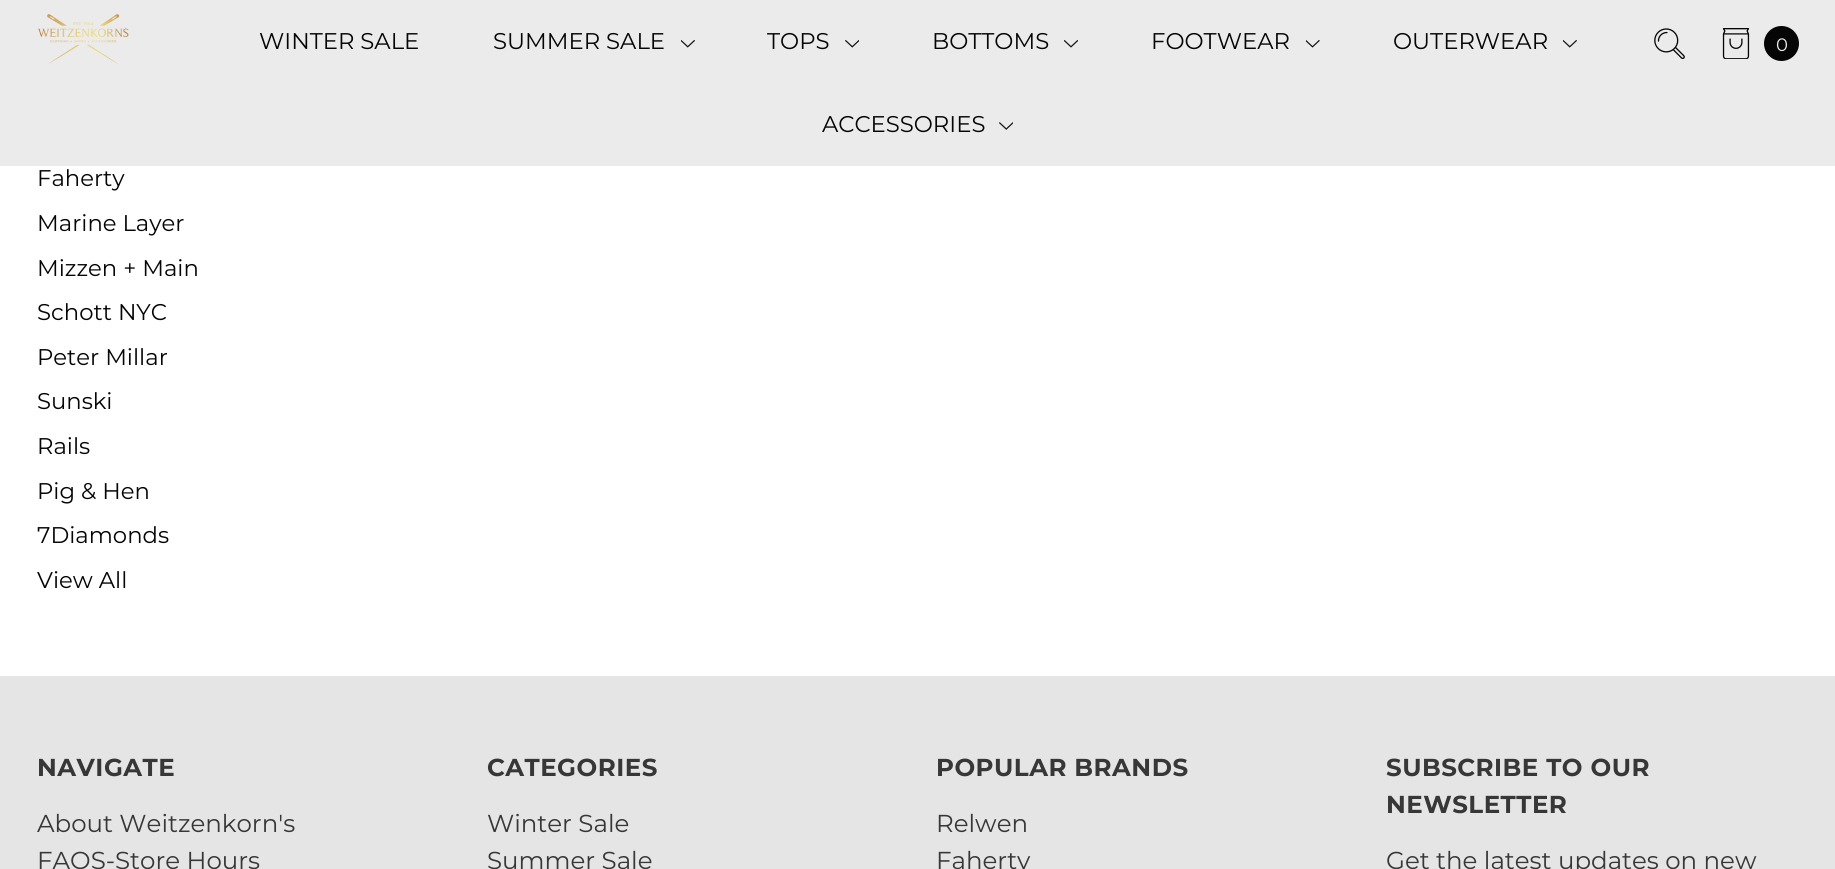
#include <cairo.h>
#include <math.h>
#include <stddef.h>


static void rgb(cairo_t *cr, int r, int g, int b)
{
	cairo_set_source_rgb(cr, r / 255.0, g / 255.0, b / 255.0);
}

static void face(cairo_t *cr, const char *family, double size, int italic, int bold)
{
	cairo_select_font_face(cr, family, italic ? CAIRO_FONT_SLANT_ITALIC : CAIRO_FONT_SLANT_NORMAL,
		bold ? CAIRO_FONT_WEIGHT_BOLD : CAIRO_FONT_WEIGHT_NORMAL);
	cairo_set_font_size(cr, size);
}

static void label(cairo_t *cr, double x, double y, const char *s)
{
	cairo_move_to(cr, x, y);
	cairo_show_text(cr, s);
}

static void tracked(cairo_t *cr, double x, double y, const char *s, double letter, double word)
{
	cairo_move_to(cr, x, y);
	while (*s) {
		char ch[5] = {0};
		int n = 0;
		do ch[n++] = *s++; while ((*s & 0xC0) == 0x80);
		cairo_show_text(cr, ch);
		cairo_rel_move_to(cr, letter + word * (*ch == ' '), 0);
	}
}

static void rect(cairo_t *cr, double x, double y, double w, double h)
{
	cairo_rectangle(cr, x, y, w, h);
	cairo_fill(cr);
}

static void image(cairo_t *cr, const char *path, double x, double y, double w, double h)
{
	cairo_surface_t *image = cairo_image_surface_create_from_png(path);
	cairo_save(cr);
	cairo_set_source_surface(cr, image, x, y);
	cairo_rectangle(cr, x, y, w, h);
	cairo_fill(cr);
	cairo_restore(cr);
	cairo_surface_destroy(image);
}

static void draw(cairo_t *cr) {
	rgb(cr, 255, 255, 255);
	cairo_paint(cr);
	rgb(cr, 235, 235, 235);
	rect(cr, 0, 0, 1835, 166);
	face(cr, "Montserrat", 22.75, 0, 0);
	rgb(cr, 5, 5, 5);
	label(cr, 259, 49, "WINTER SALE");
	label(cr, 493, 49, "SUMMER SALE");
	image(cr, "image0.png", 681, 40, 14, 8);
	label(cr, 767, 49, "TOPS");
	image(cr, "image1.png", 845, 40, 14, 8);
	label(cr, 932, 49, "BOTTOMS");
	image(cr, "image2.png", 1064, 40, 14, 8);
	label(cr, 1151, 49, "FOOTWEAR");
	image(cr, "image3.png", 1306, 40, 14, 8);
	label(cr, 1393, 49, "OUTERWEAR");
	image(cr, "image0.png", 1563, 40, 14, 8);
	label(cr, 822, 132, "ACCESSORIES");
	image(cr, "image4.png", 999, 122, 14, 8);
	image(cr, "image5.png", 38, 14, 91, 51);
	image(cr, "image6.png", 1654, 28, 31, 31);
	image(cr, "image7.png", 1722, 28, 28, 31);
	cairo_arc(cr, 1781.5, 43.5, 17.5, 0, 2 * M_PI);
	cairo_fill(cr);
	face(cr, "Montserrat", 18, 0, 0);
	rgb(cr, 235, 235, 235);
	label(cr, 1776, 51, "0");
	face(cr, "Montserrat", 22.75, 0, 0);
	rgb(cr, 5, 5, 5);
	label(cr, 37, 186, "Faherty");
	label(cr, 37, 231, "Marine Layer");
	label(cr, 37, 276, "Mizzen + Main");
	label(cr, 37, 320, "Schott NYC");
	label(cr, 37, 365, "Peter Millar");
	label(cr, 37, 409, "Sunski");
	label(cr, 37, 454, "Rails");
	label(cr, 37, 499, "Pig & Hen");
	label(cr, 37, 543, "7Diamonds");
	label(cr, 37, 588, "View All");
	rgb(cr, 229, 229, 229);
	rect(cr, 0, 676, 1835, 193);
	face(cr, "Montserrat", 24.5, 0, 1);
	rgb(cr, 55, 55, 55);
	tracked(cr, 37, 776, "NAVIGATE", 0.5, 0);
	face(cr, "Montserrat", 24.5, 0, 0);
	label(cr, 37, 832, "About Weitzenkorn's");
	label(cr, 37, 869, "FAQS-Store Hours");
	face(cr, "Montserrat", 24.5, 0, 1);
	tracked(cr, 487, 776, "CATEGORIES", 0.5, 0);
	face(cr, "Montserrat", 24.5, 0, 0);
	label(cr, 487, 832, "Winter Sale");
	label(cr, 487, 869, "Summer Sale");
	face(cr, "Montserrat", 24.5, 0, 1);
	tracked(cr, 936, 776, "POPULAR BRANDS", 0.5, 0);
	face(cr, "Montserrat", 24.5, 0, 0);
	label(cr, 936, 832, "Relwen");
	label(cr, 936, 869, "Faherty");
	face(cr, "Montserrat", 24.5, 0, 1);
	tracked(cr, 1386, 776, "SUBSCRIBE TO OUR", 0.5, 0);
	tracked(cr, 1386, 813, "NEWSLETTER", 0.5, 0);
	face(cr, "Montserrat", 24.5, 0, 0);
	label(cr, 1386, 869, "Get the latest updates on new");
}

int main(void) {
	cairo_surface_t *surface = cairo_image_surface_create(CAIRO_FORMAT_RGB24, 1835, 869);
	cairo_t *cr = cairo_create(surface);
	cairo_font_options_t *options = cairo_font_options_create();
	cairo_font_options_set_hint_metrics(options, CAIRO_HINT_METRICS_OFF);
	cairo_font_options_set_hint_style(options, CAIRO_HINT_STYLE_NONE);
	cairo_set_font_options(cr, options);
	cairo_set_miter_limit(cr, 4);
	draw(cr);
	cairo_surface_write_to_png(surface, "render.png");
	cairo_font_options_destroy(options);
	cairo_destroy(cr);
	cairo_surface_destroy(surface);
	return 0;
}
